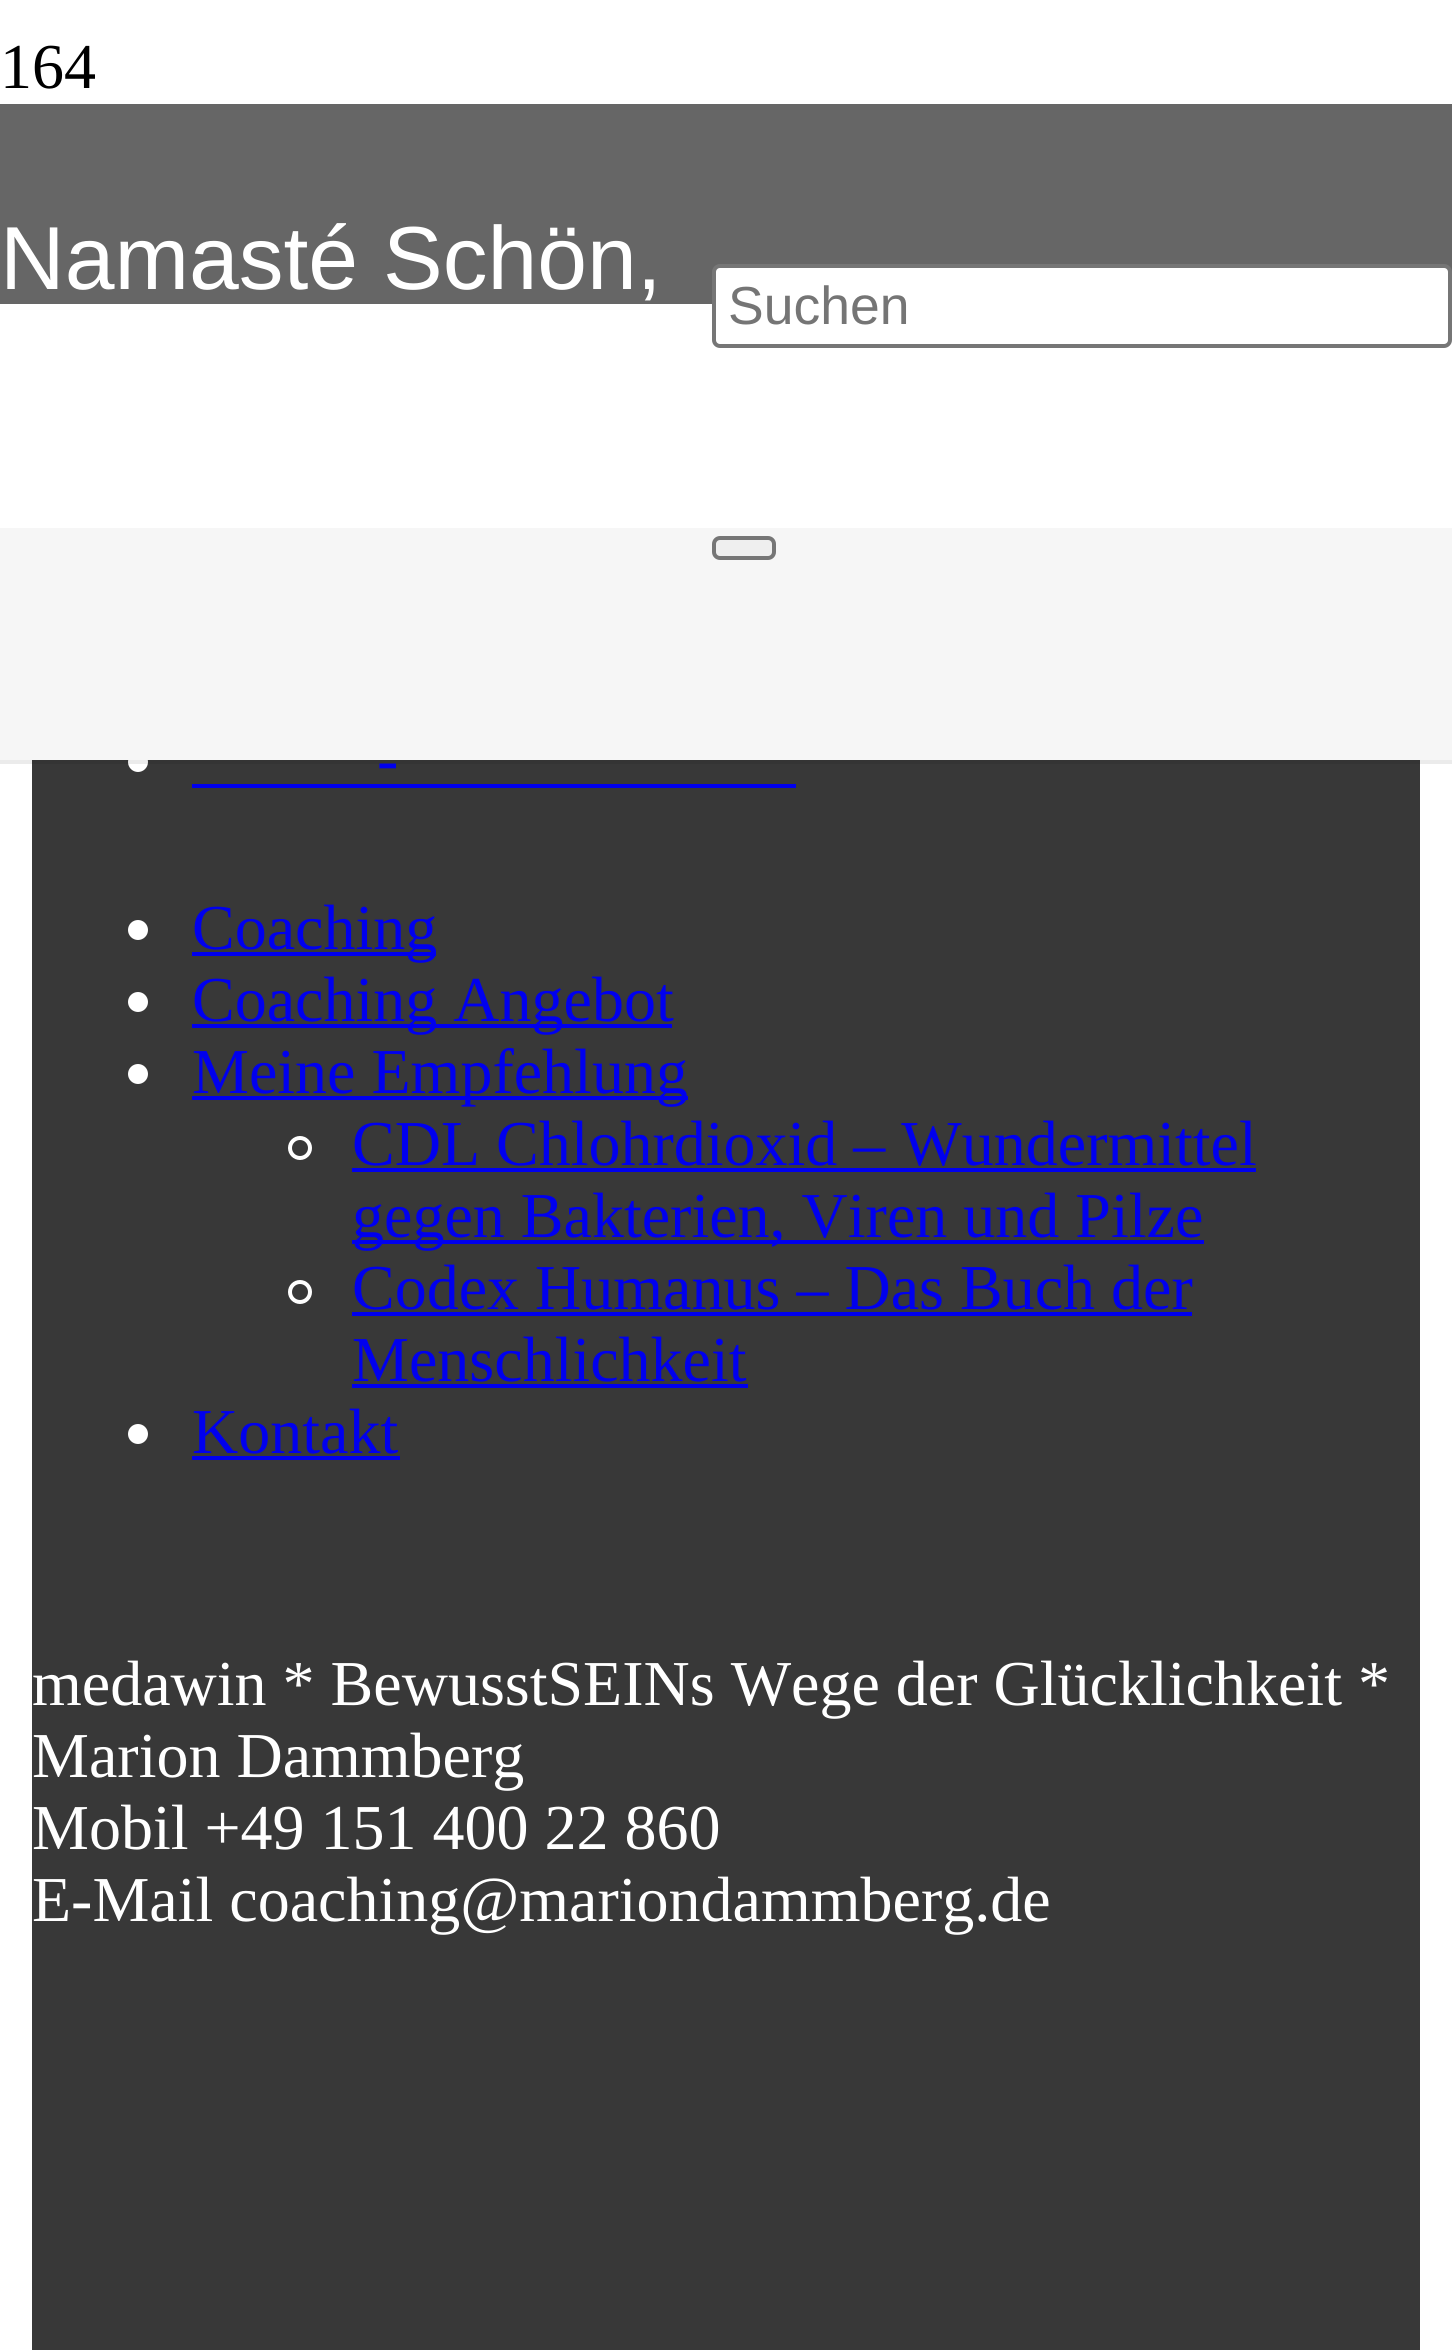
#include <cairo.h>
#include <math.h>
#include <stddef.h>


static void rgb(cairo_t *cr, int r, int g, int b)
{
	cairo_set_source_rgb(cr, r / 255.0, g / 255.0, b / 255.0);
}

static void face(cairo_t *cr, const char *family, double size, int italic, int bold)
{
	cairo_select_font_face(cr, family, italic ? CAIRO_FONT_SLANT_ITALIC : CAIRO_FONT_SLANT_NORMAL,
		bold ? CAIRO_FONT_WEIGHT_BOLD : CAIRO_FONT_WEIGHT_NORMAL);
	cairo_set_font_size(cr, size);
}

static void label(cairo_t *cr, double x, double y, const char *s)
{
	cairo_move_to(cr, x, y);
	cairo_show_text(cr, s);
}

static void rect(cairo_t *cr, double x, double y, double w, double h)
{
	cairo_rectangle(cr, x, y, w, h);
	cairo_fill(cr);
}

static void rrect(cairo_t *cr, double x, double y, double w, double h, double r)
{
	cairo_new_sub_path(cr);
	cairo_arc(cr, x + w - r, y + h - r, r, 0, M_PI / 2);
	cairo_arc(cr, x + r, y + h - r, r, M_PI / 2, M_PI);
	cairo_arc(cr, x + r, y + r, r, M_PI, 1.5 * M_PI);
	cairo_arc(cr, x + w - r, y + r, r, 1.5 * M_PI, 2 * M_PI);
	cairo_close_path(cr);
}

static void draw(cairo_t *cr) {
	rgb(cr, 255, 255, 255);
	cairo_paint(cr);
	face(cr, "Liberation Serif", 64, 0, 0);
	rgb(cr, 0, 0, 0);
	label(cr, 0, 88, "164");
	rgb(cr, 102, 102, 102);
	rect(cr, 0, 104, 1452, 200);
	face(cr, "Liberation Sans", 89.5, 0, 0);
	rgb(cr, 255, 255, 255);
	label(cr, 0, 289, "Namasté Schön,");
	rrect(cr, 714, 266, 736, 80, 6);
	cairo_fill_preserve(cr);
	rgb(cr, 118, 118, 118);
	cairo_set_line_width(cr, 4);
	cairo_stroke(cr);
	face(cr, "Liberation Sans", 53.5, 0, 0);
	rgb(cr, 117, 117, 117);
	label(cr, 728, 324, "Suchen");
	rgb(cr, 56, 56, 56);
	rect(cr, 32, 760, 1388, 1590);
	rgb(cr, 255, 255, 255);
	cairo_new_path(cr);
	cairo_arc(cr, 138, 762, 10, 0, 2 * M_PI);
	cairo_fill(cr);
	rgb(cr, 246, 246, 246);
	rect(cr, 0, 528, 1452, 232);
	rgb(cr, 239, 239, 239);
	rrect(cr, 714, 538, 60, 20, 6);
	cairo_fill_preserve(cr);
	rgb(cr, 118, 118, 118);
	cairo_stroke(cr);
	cairo_set_source_rgba(cr, 0, 0, 0, 0.08);
	rect(cr, 0, 760, 1452, 4);
	face(cr, "Liberation Serif", 64, 0, 0);
	rgb(cr, 0, 0, 238);
	label(cr, 377, 781, "-");
	rect(cr, 192, 784, 604, 4);
	rgb(cr, 255, 255, 255);
	cairo_new_path(cr);
	cairo_arc(cr, 138, 930, 10, 0, 2 * M_PI);
	cairo_fill(cr);
	rgb(cr, 0, 0, 238);
	rect(cr, 192, 952, 244, 4);
	label(cr, 192, 949, "Coaching");
	rgb(cr, 255, 255, 255);
	cairo_new_path(cr);
	cairo_arc(cr, 138, 1002, 10, 0, 2 * M_PI);
	cairo_fill(cr);
	rgb(cr, 0, 0, 238);
	rect(cr, 192, 1024, 480, 4);
	label(cr, 192, 1021, "Coaching Angebot");
	rgb(cr, 255, 255, 255);
	cairo_new_path(cr);
	cairo_arc(cr, 138, 1074, 10, 0, 2 * M_PI);
	cairo_fill(cr);
	rgb(cr, 0, 0, 238);
	rect(cr, 192, 1096, 496, 4);
	label(cr, 192, 1093, "Meine Empfehlung");
	cairo_new_path(cr);
	cairo_arc(cr, 300, 1148, 10, 0, 2 * M_PI);
	rgb(cr, 255, 255, 255);
	cairo_stroke(cr);
	rgb(cr, 0, 0, 238);
	label(cr, 352, 1165, "CDL Chlohrdioxid – Wundermittel");
	rect(cr, 352, 1168, 904, 4);
	rect(cr, 352, 1240, 852, 4);
	label(cr, 352, 1237, "gegen Bakterien, Viren und Pilze");
	cairo_new_path(cr);
	cairo_arc(cr, 300, 1292, 10, 0, 2 * M_PI);
	rgb(cr, 255, 255, 255);
	cairo_stroke(cr);
	rgb(cr, 0, 0, 238);
	label(cr, 352, 1309, "Codex Humanus – Das Buch der");
	rect(cr, 352, 1312, 840, 4);
	label(cr, 352, 1381, "Menschlichkeit");
	rect(cr, 352, 1384, 396, 4);
	rgb(cr, 255, 255, 255);
	cairo_new_path(cr);
	cairo_arc(cr, 138, 1434, 10, 0, 2 * M_PI);
	cairo_fill(cr);
	rgb(cr, 0, 0, 238);
	label(cr, 192, 1453, "Kontakt");
	rect(cr, 192, 1456, 208, 4);
	rgb(cr, 255, 255, 255);
	label(cr, 32, 1705, "medawin * BewusstSEINs Wege der Glücklichkeit *");
	label(cr, 32, 1777, "Marion Dammberg");
	label(cr, 32, 1849, "Mobil +49 151 400 22 860");
	label(cr, 32, 1921, "E-Mail coaching@mariondammberg.de");
}

int main(void) {
	cairo_surface_t *surface = cairo_image_surface_create(CAIRO_FORMAT_RGB24, 1452, 2350);
	cairo_t *cr = cairo_create(surface);
	cairo_font_options_t *options = cairo_font_options_create();
	cairo_font_options_set_hint_metrics(options, CAIRO_HINT_METRICS_OFF);
	cairo_font_options_set_hint_style(options, CAIRO_HINT_STYLE_NONE);
	cairo_set_font_options(cr, options);
	cairo_set_miter_limit(cr, 4);
	draw(cr);
	cairo_surface_write_to_png(surface, "render.png");
	cairo_font_options_destroy(options);
	cairo_destroy(cr);
	cairo_surface_destroy(surface);
	return 0;
}
